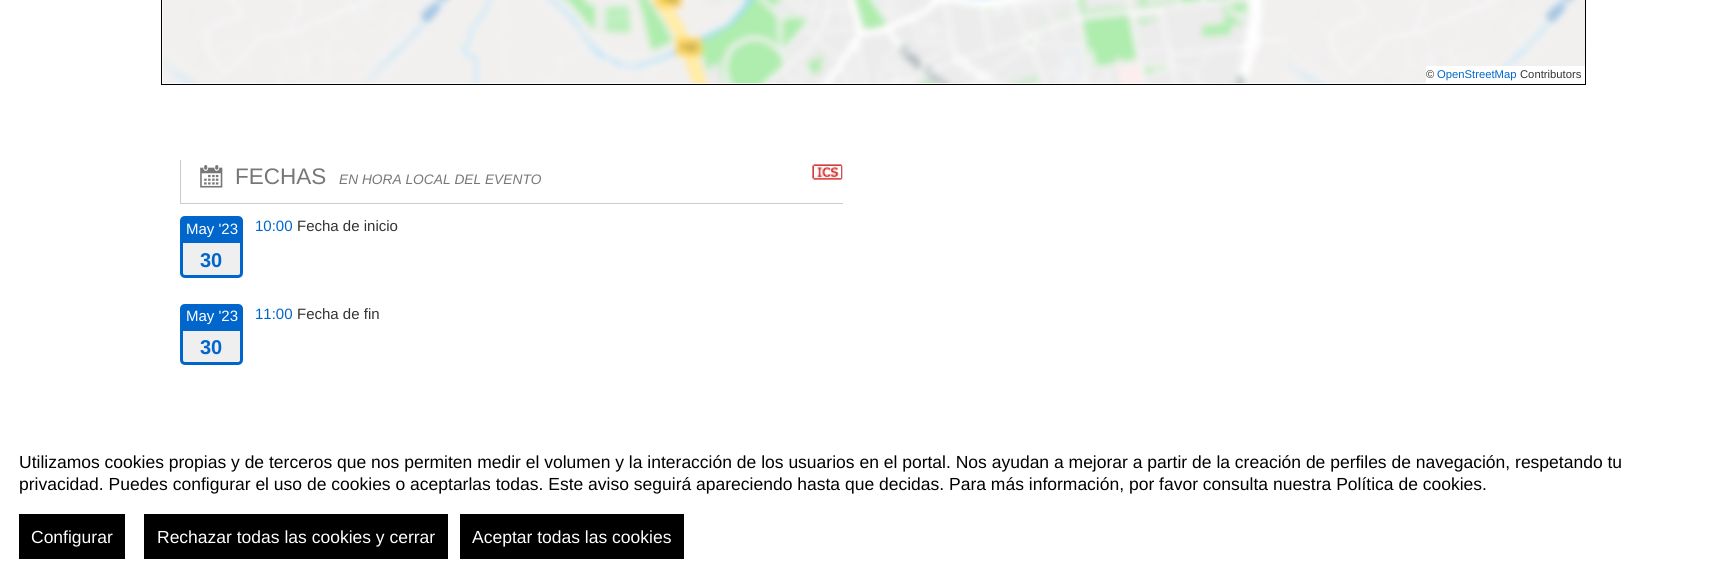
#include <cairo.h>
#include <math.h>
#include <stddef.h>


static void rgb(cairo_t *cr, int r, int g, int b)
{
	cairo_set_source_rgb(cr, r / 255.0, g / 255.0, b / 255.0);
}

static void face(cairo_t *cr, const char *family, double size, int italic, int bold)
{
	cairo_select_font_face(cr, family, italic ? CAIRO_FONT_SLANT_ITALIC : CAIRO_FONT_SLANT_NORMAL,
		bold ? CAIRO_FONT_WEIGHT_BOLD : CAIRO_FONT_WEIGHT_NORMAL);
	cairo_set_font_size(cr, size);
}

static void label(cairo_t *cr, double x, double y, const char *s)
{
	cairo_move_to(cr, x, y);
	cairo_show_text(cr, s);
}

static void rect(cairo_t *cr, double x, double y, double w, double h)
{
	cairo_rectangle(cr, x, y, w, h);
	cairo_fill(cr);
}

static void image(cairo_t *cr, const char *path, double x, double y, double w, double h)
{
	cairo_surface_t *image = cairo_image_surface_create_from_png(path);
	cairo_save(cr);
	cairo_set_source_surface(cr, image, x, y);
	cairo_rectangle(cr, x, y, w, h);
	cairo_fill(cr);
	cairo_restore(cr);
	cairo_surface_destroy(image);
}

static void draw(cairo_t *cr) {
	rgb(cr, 255, 255, 255);
	cairo_paint(cr);
	cairo_rectangle(cr, 161.5, -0.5, 1424, 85);
	rgb(cr, 0, 0, 0);
	cairo_set_line_width(cr, 1);
	cairo_stroke(cr);
	image(cr, "image0.png", 162, 0, 1423, 84);
	rgb(cr, 255, 255, 255);
	rect(cr, 1426, 66, 159, 18);
	face(cr, "Liberation Sans", 11.25, 0, 0);
	rgb(cr, 51, 51, 51);
	label(cr, 1426, 78, "©");
	rgb(cr, 0, 102, 204);
	label(cr, 1437, 78, "OpenStreetMap");
	rgb(cr, 51, 51, 51);
	label(cr, 1520, 78, "Contributors");
	rgb(cr, 204, 204, 204);
	rect(cr, 180, 203, 663, 1);
	rect(cr, 180, 160, 1, 44);
	image(cr, "image1.png", 200, 165, 23, 23);
	face(cr, "Liberation Sans", 22.5, 0, 0);
	rgb(cr, 119, 119, 119);
	label(cr, 235, 184, "FECHAS");
	face(cr, "Liberation Sans", 13.75, 1, 0);
	label(cr, 339, 184, "EN HORA LOCAL DEL EVENTO");
	image(cr, "image2.png", 812, 164, 31, 16);
	rgb(cr, 0, 102, 204);
	cairo_new_path(cr);
	cairo_move_to(cr, 185, 216);
	cairo_line_to(cr, 238, 216);
	cairo_curve_to(cr, 241, 216, 243, 218, 243, 221);
	cairo_line_to(cr, 243, 240);
	cairo_line_to(cr, 180, 240);
	cairo_line_to(cr, 180, 221);
	cairo_curve_to(cr, 180, 218, 182, 216, 185, 216);
	cairo_close_path(cr);
	cairo_fill(cr);
	face(cr, "Liberation Sans", 15, 0, 0);
	rgb(cr, 255, 255, 255);
	label(cr, 186, 234, "May '23");
	rgb(cr, 239, 239, 239);
	cairo_new_path(cr);
	cairo_move_to(cr, 181.5, 241.5);
	cairo_line_to(cr, 241.5, 241.5);
	cairo_line_to(cr, 241.5, 273);
	cairo_curve_to(cr, 241.5, 275, 240, 276.5, 238, 276.5);
	cairo_line_to(cr, 185, 276.5);
	cairo_curve_to(cr, 183, 276.5, 181.5, 275, 181.5, 273);
	cairo_close_path(cr);
	cairo_fill_preserve(cr);
	rgb(cr, 0, 102, 204);
	cairo_set_line_width(cr, 3);
	cairo_stroke(cr);
	face(cr, "Liberation Sans", 20, 0, 1);
	label(cr, 200, 267, "30");
	face(cr, "Liberation Sans", 15, 0, 0);
	label(cr, 255, 231, "10:00");
	rgb(cr, 51, 51, 51);
	label(cr, 297, 231, "Fecha de inicio");
	rgb(cr, 0, 102, 204);
	cairo_new_path(cr);
	cairo_move_to(cr, 185, 304);
	cairo_line_to(cr, 238, 304);
	cairo_curve_to(cr, 241, 304, 243, 306, 243, 309);
	cairo_line_to(cr, 243, 328);
	cairo_line_to(cr, 180, 328);
	cairo_line_to(cr, 180, 309);
	cairo_curve_to(cr, 180, 306, 182, 304, 185, 304);
	cairo_close_path(cr);
	cairo_fill(cr);
	rgb(cr, 255, 255, 255);
	label(cr, 186, 321, "May '23");
	rgb(cr, 239, 239, 239);
	cairo_new_path(cr);
	cairo_move_to(cr, 181.5, 329.5);
	cairo_line_to(cr, 241.5, 329.5);
	cairo_line_to(cr, 241.5, 360);
	cairo_curve_to(cr, 241.5, 362, 240, 363.5, 238, 363.5);
	cairo_line_to(cr, 185, 363.5);
	cairo_curve_to(cr, 183, 363.5, 181.5, 362, 181.5, 360);
	cairo_close_path(cr);
	cairo_fill_preserve(cr);
	rgb(cr, 0, 102, 204);
	cairo_stroke(cr);
	face(cr, "Liberation Sans", 20, 0, 1);
	label(cr, 200, 354, "30");
	face(cr, "Liberation Sans", 15, 0, 0);
	label(cr, 255, 319, "11:00");
	rgb(cr, 51, 51, 51);
	label(cr, 297, 319, "Fecha de fin");
	face(cr, "Liberation Sans", 17.5, 0, 0);
	rgb(cr, 0, 0, 0);
	label(cr, 19, 468, "Utilizamos cookies propias y de terceros que nos permiten medir el volumen y la interacción de los usuarios en el portal. Nos ayudan a mejorar a partir de la creación de perfiles de navegación, respetando tu");
	label(cr, 19, 490, "privacidad. Puedes configurar el uso de cookies o aceptarlas todas. Este aviso seguirá apareciendo hasta que decidas. Para más información, por favor consulta nuestra Política de cookies.");
	rect(cr, 19, 514, 106, 45);
	rgb(cr, 255, 255, 255);
	label(cr, 31, 543, "Configurar");
	rgb(cr, 0, 0, 0);
	rect(cr, 144, 514, 304, 45);
	rgb(cr, 255, 255, 255);
	label(cr, 157, 543, "Rechazar todas las cookies y cerrar");
	rgb(cr, 0, 0, 0);
	rect(cr, 460, 514, 224, 45);
	rgb(cr, 255, 255, 255);
	label(cr, 472, 543, "Aceptar todas las cookies");
}

int main(void) {
	cairo_surface_t *surface = cairo_image_surface_create(CAIRO_FORMAT_RGB24, 1710, 577);
	cairo_t *cr = cairo_create(surface);
	cairo_font_options_t *options = cairo_font_options_create();
	cairo_font_options_set_hint_metrics(options, CAIRO_HINT_METRICS_OFF);
	cairo_font_options_set_hint_style(options, CAIRO_HINT_STYLE_NONE);
	cairo_set_font_options(cr, options);
	cairo_set_miter_limit(cr, 4);
	draw(cr);
	cairo_surface_write_to_png(surface, "render.png");
	cairo_font_options_destroy(options);
	cairo_destroy(cr);
	cairo_surface_destroy(surface);
	return 0;
}
